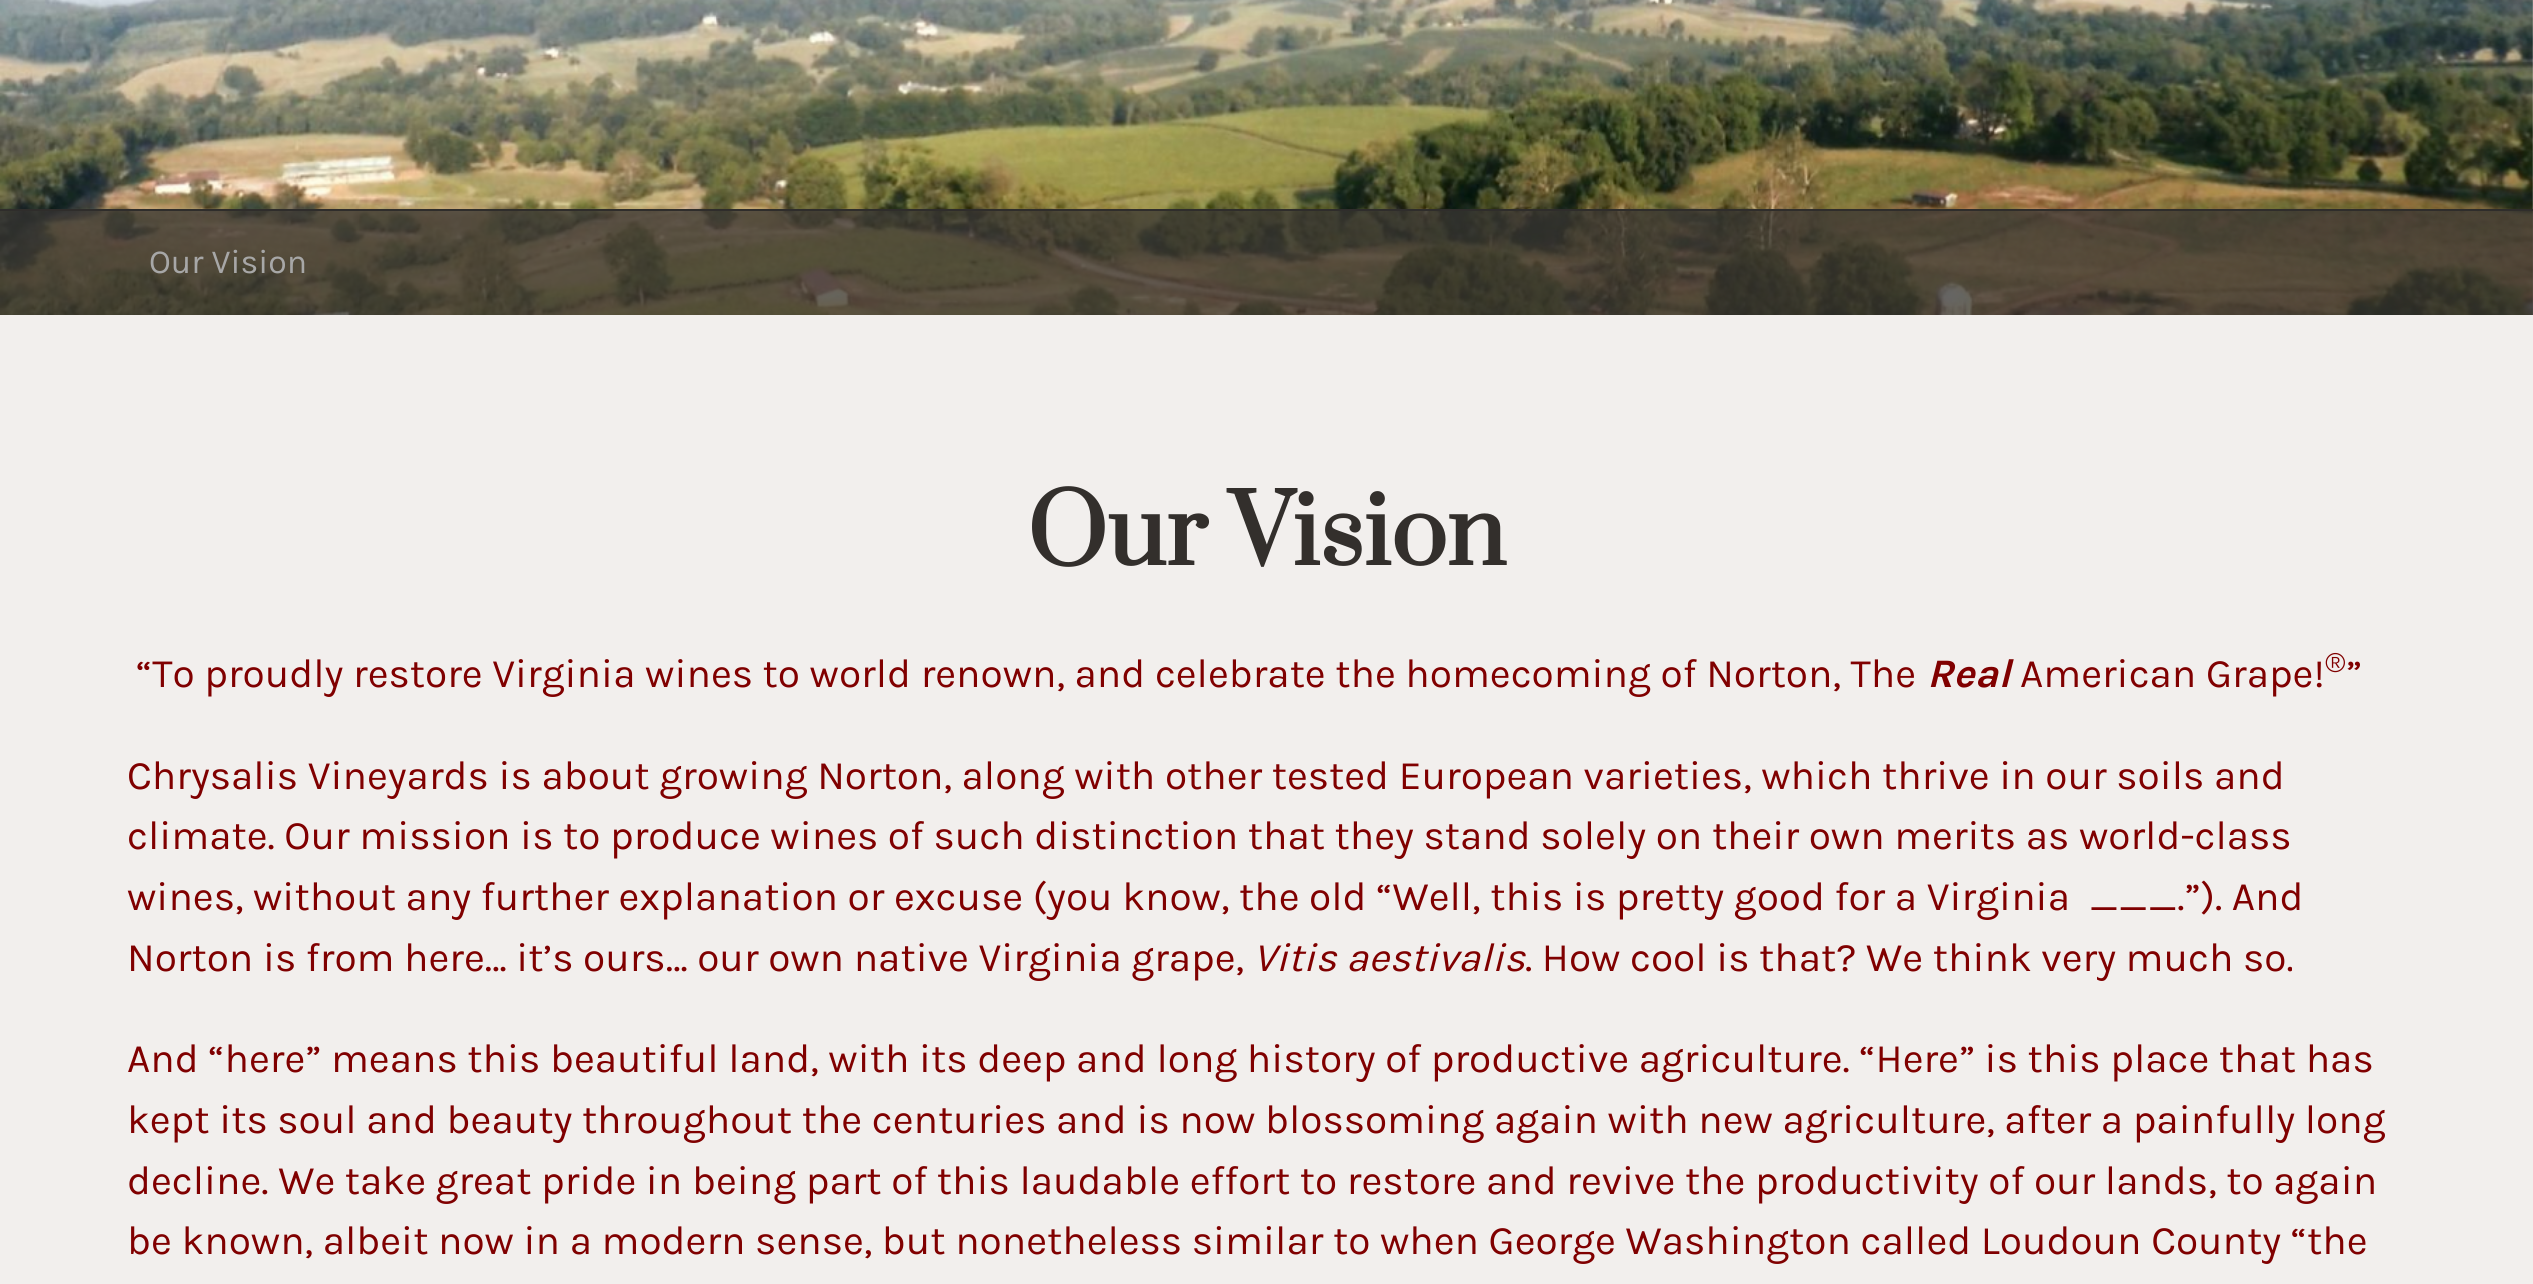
#include <cairo.h>
#include <math.h>
#include <stddef.h>


static void rgb(cairo_t *cr, int r, int g, int b)
{
	cairo_set_source_rgb(cr, r / 255.0, g / 255.0, b / 255.0);
}

static void face(cairo_t *cr, const char *family, double size, int italic, int bold)
{
	cairo_select_font_face(cr, family, italic ? CAIRO_FONT_SLANT_ITALIC : CAIRO_FONT_SLANT_NORMAL,
		bold ? CAIRO_FONT_WEIGHT_BOLD : CAIRO_FONT_WEIGHT_NORMAL);
	cairo_set_font_size(cr, size);
}

static void label(cairo_t *cr, double x, double y, const char *s)
{
	cairo_move_to(cr, x, y);
	cairo_show_text(cr, s);
}

static void rect(cairo_t *cr, double x, double y, double w, double h)
{
	cairo_rectangle(cr, x, y, w, h);
	cairo_fill(cr);
}

static void image(cairo_t *cr, const char *path, double x, double y, double w, double h)
{
	cairo_surface_t *image = cairo_image_surface_create_from_png(path);
	cairo_save(cr);
	cairo_set_source_surface(cr, image, x, y);
	cairo_rectangle(cr, x, y, w, h);
	cairo_fill(cr);
	cairo_restore(cr);
	cairo_surface_destroy(image);
}

static void draw(cairo_t *cr) {
	rgb(cr, 242, 239, 237);
	cairo_paint(cr);
	image(cr, "image0.png", 0, 0, 2533, 315);
	cairo_set_source_rgba(cr, 0.22, 0.208, 0.196, 0.76);
	rect(cr, 0, 211, 2533, 104);
	rgb(cr, 47, 45, 43);
	rect(cr, 0, 209, 2533, 2);
	face(cr, "Karla", 33.75, 0, 0);
	rgb(cr, 167, 167, 167);
	label(cr, 149, 273, "Our Vision");
	face(cr, "Prata", 93, 0, 1);
	rgb(cr, 51, 47, 44);
	label(cr, 1027, 565, "Our Vision");
	face(cr, "Karla", 40.5, 0, 0);
	rgb(cr, 128, 0, 0);
	label(cr, 136, 687, "“To proudly restore Virginia wines to world renown, and celebrate the homecoming of Norton, The");
	face(cr, "Karla", 40.5, 1, 1);
	label(cr, 1927, 687, "Real");
	face(cr, "Karla", 40.5, 0, 0);
	label(cr, 2020, 687, "American Grape!");
	face(cr, "Karla", 30, 0, 0);
	label(cr, 2325, 672, "®");
	face(cr, "Karla", 40.5, 0, 0);
	label(cr, 2346, 687, "”");
	label(cr, 127, 789, "Chrysalis Vineyards is about growing Norton, along with other tested European varieties, which thrive in our soils and");
	label(cr, 127, 849, "climate. Our mission is to produce wines of such distinction that they stand solely on their own merits as world-class");
	label(cr, 127, 910, "wines, without any further explanation or excuse (you know, the old “Well, this is pretty good for a Virginia  ___.”). And");
	label(cr, 127, 971, "Norton is from here… it’s ours… our own native Virginia grape,");
	face(cr, "Karla", 40.5, 1, 0);
	label(cr, 1253, 971, "Vitis aestivalis");
	face(cr, "Karla", 40.5, 0, 0);
	label(cr, 1525, 971, ". How cool is that? We think very much so.");
	label(cr, 127, 1072, "And “here” means this beautiful land, with its deep and long history of productive agriculture. “Here” is this place that has");
	label(cr, 127, 1133, "kept its soul and beauty throughout the centuries and is now blossoming again with new agriculture, after a painfully long");
	label(cr, 127, 1194, "decline. We take great pride in being part of this laudable effort to restore and revive the productivity of our lands, to again");
	label(cr, 127, 1254, "be known, albeit now in a modern sense, but nonetheless similar to when George Washington called Loudoun County “the");
}

int main(void) {
	cairo_surface_t *surface = cairo_image_surface_create(CAIRO_FORMAT_RGB24, 2533, 1284);
	cairo_t *cr = cairo_create(surface);
	cairo_font_options_t *options = cairo_font_options_create();
	cairo_font_options_set_hint_metrics(options, CAIRO_HINT_METRICS_OFF);
	cairo_font_options_set_hint_style(options, CAIRO_HINT_STYLE_NONE);
	cairo_set_font_options(cr, options);
	cairo_set_miter_limit(cr, 4);
	draw(cr);
	cairo_surface_write_to_png(surface, "render.png");
	cairo_font_options_destroy(options);
	cairo_destroy(cr);
	cairo_surface_destroy(surface);
	return 0;
}
